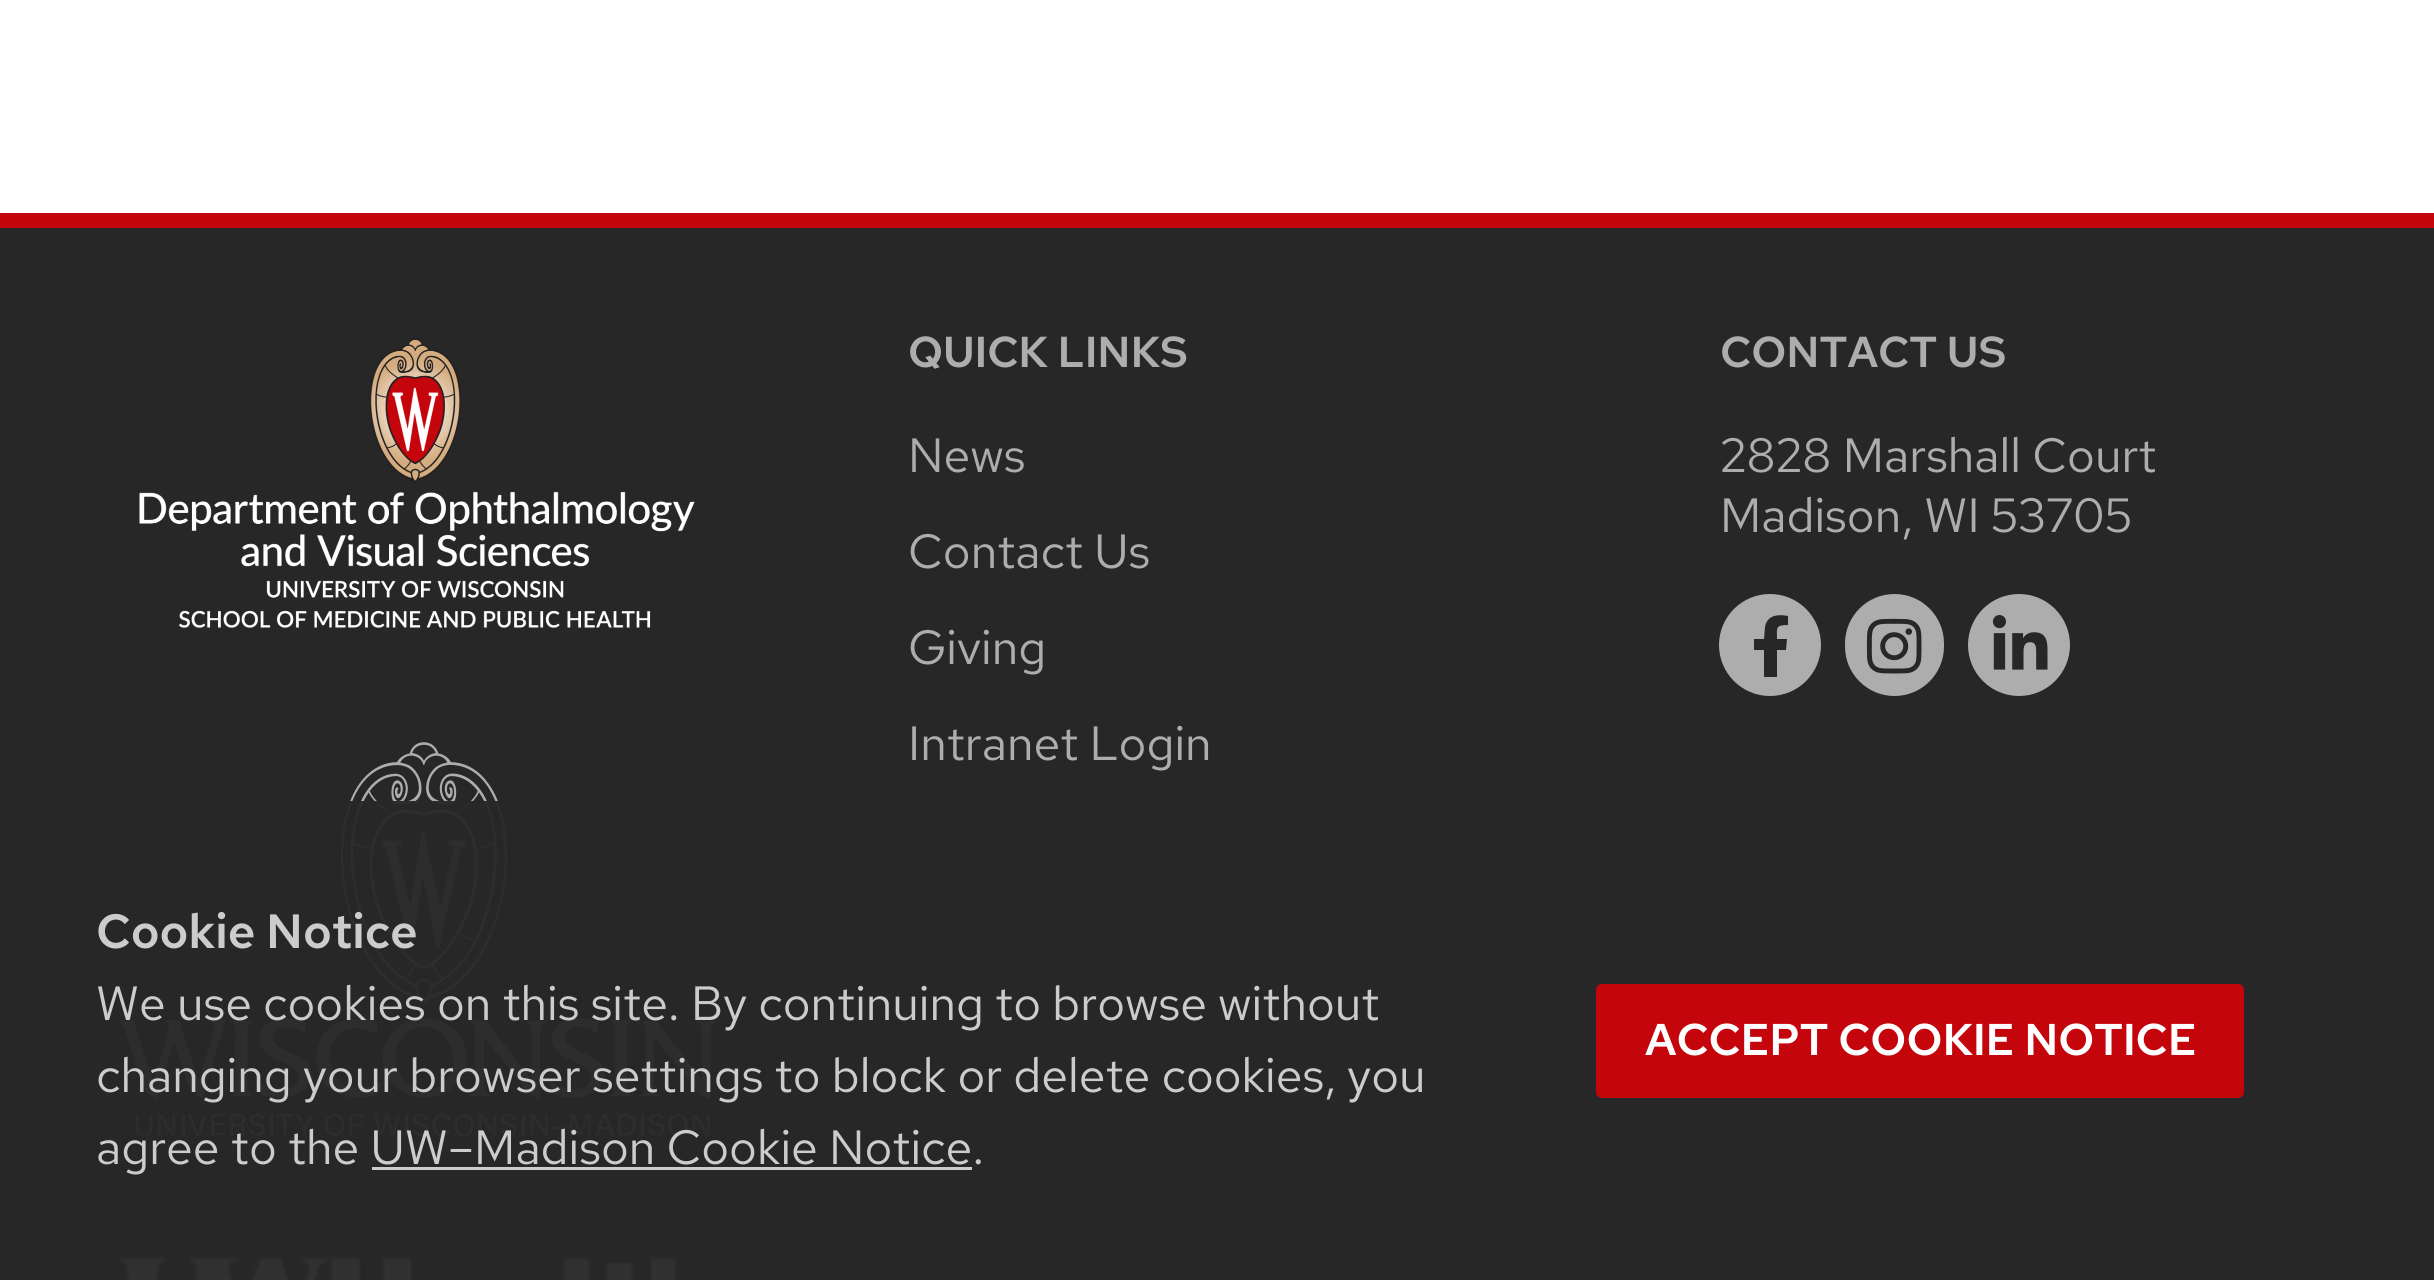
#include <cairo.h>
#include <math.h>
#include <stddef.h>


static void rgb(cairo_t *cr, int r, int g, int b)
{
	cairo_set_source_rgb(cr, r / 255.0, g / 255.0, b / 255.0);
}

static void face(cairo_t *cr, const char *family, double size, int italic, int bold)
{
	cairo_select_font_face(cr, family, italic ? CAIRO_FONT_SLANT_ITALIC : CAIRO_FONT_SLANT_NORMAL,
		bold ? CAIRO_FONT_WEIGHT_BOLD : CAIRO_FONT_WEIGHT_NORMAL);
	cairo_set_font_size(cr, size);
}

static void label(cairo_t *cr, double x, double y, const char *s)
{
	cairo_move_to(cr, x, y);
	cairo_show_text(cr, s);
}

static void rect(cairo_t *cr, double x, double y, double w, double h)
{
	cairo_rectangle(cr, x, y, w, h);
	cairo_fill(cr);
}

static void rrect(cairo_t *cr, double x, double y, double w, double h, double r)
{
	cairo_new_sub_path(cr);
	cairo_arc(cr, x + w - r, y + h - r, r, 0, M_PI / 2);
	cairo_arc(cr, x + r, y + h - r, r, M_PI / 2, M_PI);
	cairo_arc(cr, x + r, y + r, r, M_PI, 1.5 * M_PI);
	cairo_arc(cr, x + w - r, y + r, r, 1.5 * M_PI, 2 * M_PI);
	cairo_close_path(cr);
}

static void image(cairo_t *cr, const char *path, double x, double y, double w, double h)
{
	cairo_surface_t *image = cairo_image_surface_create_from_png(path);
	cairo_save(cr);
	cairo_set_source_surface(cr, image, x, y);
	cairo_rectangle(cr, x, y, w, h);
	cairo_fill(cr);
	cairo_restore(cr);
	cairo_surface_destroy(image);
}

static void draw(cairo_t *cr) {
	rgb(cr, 255, 255, 255);
	cairo_paint(cr);
	rgb(cr, 40, 39, 40);
	rect(cr, 0, 228, 2434, 1052);
	rgb(cr, 197, 5, 12);
	rect(cr, 0, 213, 2434, 15);
	image(cr, "image0.png", 139, 338, 556, 290);
	image(cr, "image1.png", 117, 742, 600, 394);
	image(cr, "image2.png", 119, 1257, 581, 23);
	face(cr, "Red Hat Text SemiBold", 43.25, 0, 0);
	rgb(cr, 173, 173, 173);
	label(cr, 908, 367, "QUICK LINKS");
	face(cr, "Red Hat Text", 48, 0, 0);
	label(cr, 908, 472, "News");
	label(cr, 908, 568, "Contact Us");
	label(cr, 908, 664, "Giving");
	label(cr, 908, 760, "Intranet Login");
	face(cr, "Red Hat Text SemiBold", 43.25, 0, 0);
	label(cr, 1720, 367, "CONTACT US");
	face(cr, "Red Hat Text", 48, 0, 0);
	label(cr, 1720, 472, "2828 Marshall Court");
	label(cr, 1720, 532, "Madison, WI 53705");
	cairo_new_path(cr);
	cairo_arc(cr, 1770, 645, 51, 0, 2 * M_PI);
	cairo_fill(cr);
	rgb(cr, 40, 39, 40);
	cairo_new_path(cr);
	cairo_move_to(cr, 1786, 650);
	cairo_line_to(cr, 1787, 639);
	cairo_line_to(cr, 1777, 639);
	cairo_curve_to(cr, 1777, 628, 1775, 625, 1788, 625);
	cairo_line_to(cr, 1788, 616);
	cairo_curve_to(cr, 1778, 614, 1767, 615, 1765, 627);
	cairo_line_to(cr, 1764, 639);
	cairo_line_to(cr, 1754, 639);
	cairo_line_to(cr, 1754, 650);
	cairo_line_to(cr, 1764, 650);
	cairo_line_to(cr, 1764, 677);
	cairo_line_to(cr, 1777, 677);
	cairo_line_to(cr, 1777, 650);
	cairo_close_path(cr);
	cairo_fill(cr);
	rgb(cr, 173, 173, 173);
	rrect(cr, 1845, 594, 99, 102, 49.5);
	cairo_fill(cr);
	image(cr, "image3.png", 1866, 618, 56, 56);
	cairo_arc(cr, 2019, 645, 51, 0, 2 * M_PI);
	cairo_fill(cr);
	image(cr, "image4.png", 1992, 615, 56, 55);
	cairo_set_source_rgba(cr, 0.157, 0.153, 0.157, 0.95);
	rect(cr, 117, 801, 600, 479);
	face(cr, "Red Hat Text SemiBold", 48, 0, 0);
	rgb(cr, 204, 204, 204);
	label(cr, 96, 948, "Cookie Notice");
	face(cr, "Red Hat Text", 48, 0, 0);
	label(cr, 96, 1020, "We use cookies on this site. By continuing to browse without");
	label(cr, 96, 1092, "changing your browser settings to block or delete cookies, you");
	label(cr, 96, 1164, "agree to the UW–Madison Cookie Notice.");
	rect(cr, 372, 1167, 600, 3);
	rgb(cr, 197, 5, 12);
	rrect(cr, 1596, 984, 648, 114, 6);
	cairo_fill(cr);
	face(cr, "Red Hat Text SemiBold", 44.4, 0, 0);
	rgb(cr, 255, 255, 255);
	label(cr, 1645, 1055, "ACCEPT COOKIE NOTICE");
}

int main(void) {
	cairo_surface_t *surface = cairo_image_surface_create(CAIRO_FORMAT_RGB24, 2434, 1280);
	cairo_t *cr = cairo_create(surface);
	cairo_font_options_t *options = cairo_font_options_create();
	cairo_font_options_set_hint_metrics(options, CAIRO_HINT_METRICS_OFF);
	cairo_font_options_set_hint_style(options, CAIRO_HINT_STYLE_NONE);
	cairo_set_font_options(cr, options);
	cairo_set_miter_limit(cr, 4);
	draw(cr);
	cairo_surface_write_to_png(surface, "render.png");
	cairo_font_options_destroy(options);
	cairo_destroy(cr);
	cairo_surface_destroy(surface);
	return 0;
}
